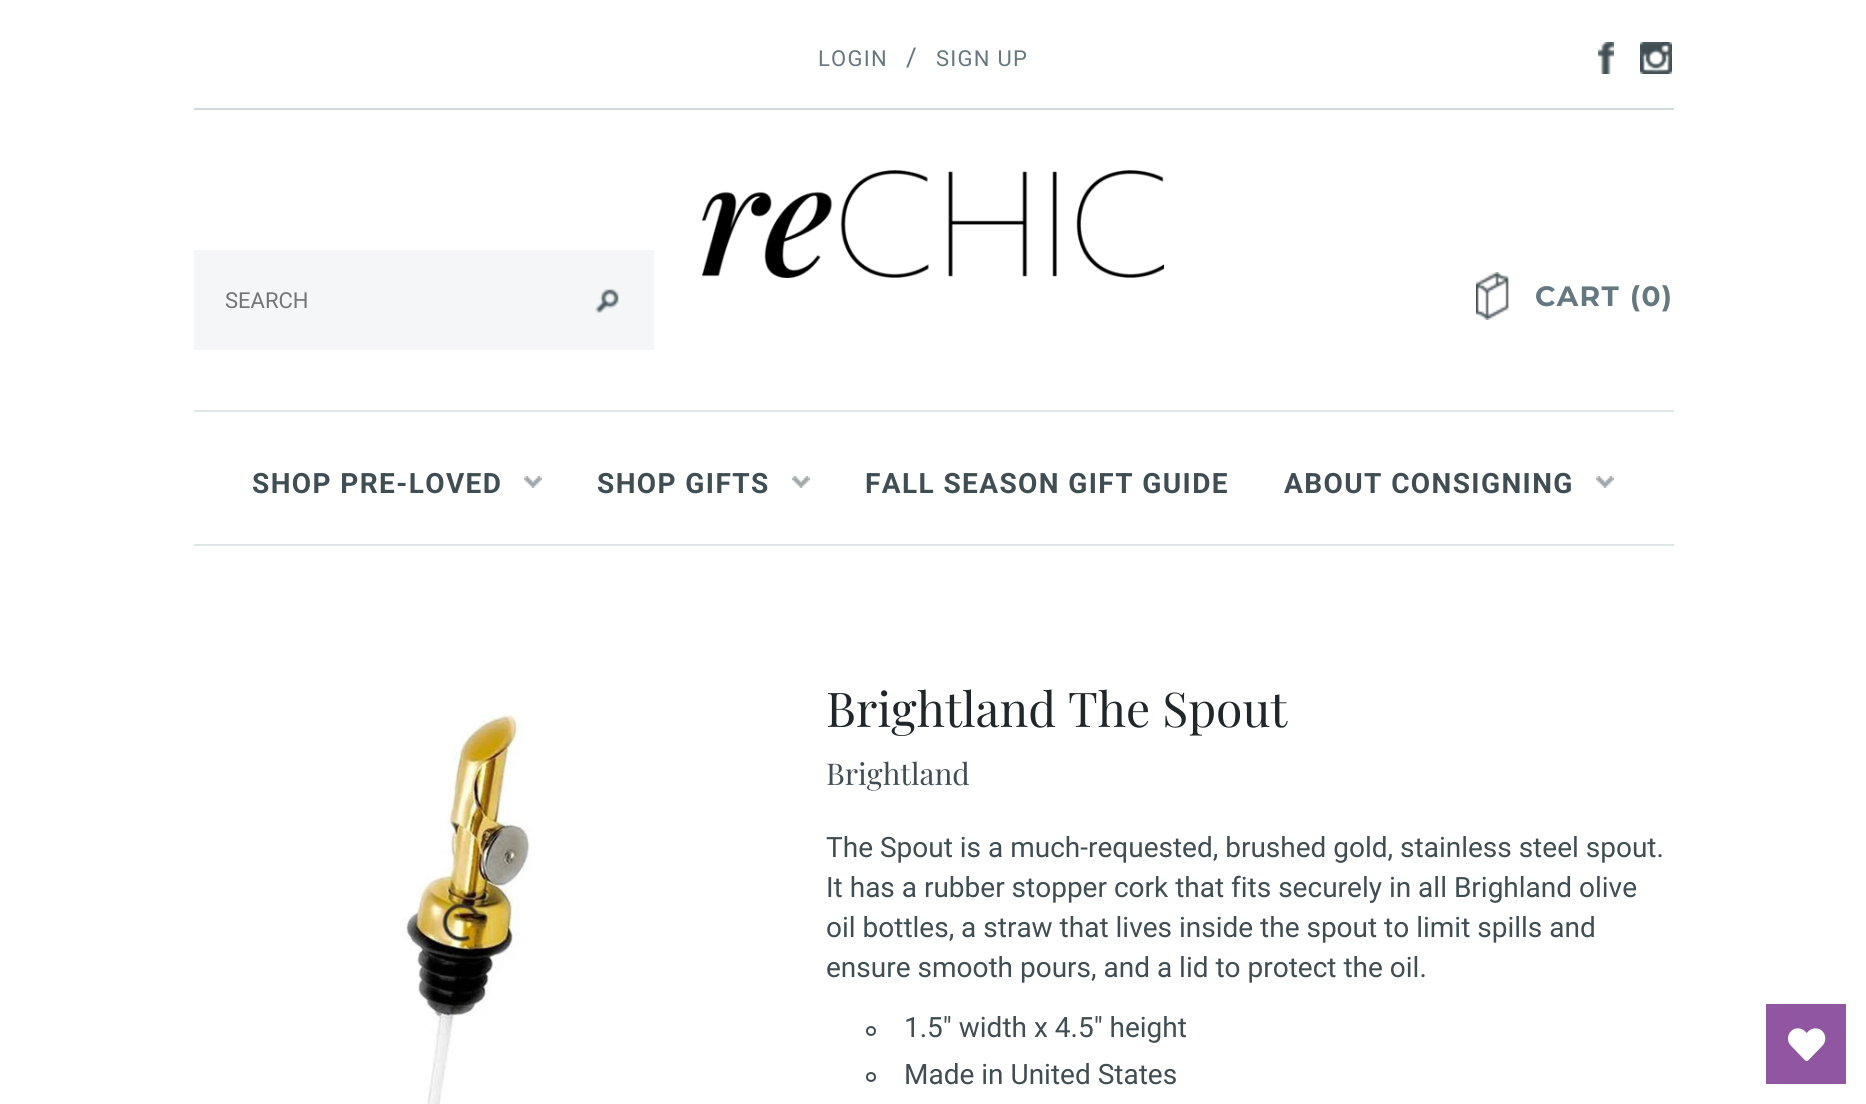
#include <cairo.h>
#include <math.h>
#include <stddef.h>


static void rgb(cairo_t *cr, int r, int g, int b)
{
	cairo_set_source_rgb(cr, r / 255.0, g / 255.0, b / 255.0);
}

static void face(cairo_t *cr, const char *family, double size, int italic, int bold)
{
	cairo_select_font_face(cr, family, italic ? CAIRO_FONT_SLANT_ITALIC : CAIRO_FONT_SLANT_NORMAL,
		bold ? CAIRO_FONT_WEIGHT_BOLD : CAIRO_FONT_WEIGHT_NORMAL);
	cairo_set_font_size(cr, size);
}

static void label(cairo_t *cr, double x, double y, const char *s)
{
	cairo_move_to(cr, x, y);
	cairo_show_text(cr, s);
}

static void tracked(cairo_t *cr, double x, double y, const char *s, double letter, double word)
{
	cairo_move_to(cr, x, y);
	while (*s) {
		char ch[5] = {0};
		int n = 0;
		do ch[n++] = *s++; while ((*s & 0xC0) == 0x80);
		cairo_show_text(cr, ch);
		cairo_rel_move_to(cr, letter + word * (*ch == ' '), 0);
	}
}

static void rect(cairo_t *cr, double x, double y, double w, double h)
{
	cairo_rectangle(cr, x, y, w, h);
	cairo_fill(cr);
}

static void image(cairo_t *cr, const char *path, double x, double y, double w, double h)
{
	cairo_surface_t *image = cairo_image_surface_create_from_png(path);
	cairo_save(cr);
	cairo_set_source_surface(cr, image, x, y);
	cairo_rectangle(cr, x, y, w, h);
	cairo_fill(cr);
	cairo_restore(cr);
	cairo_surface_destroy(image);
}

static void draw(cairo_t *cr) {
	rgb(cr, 255, 255, 255);
	cairo_paint(cr);
	rgb(cr, 223, 228, 230);
	rect(cr, 194, 410, 1480, 2);
	image(cr, "image0.png", 702, 170, 462, 108);
	rgb(cr, 244, 246, 247);
	rect(cr, 194, 250, 460, 100);
	face(cr, "Roboto", 22, 0, 0);
	rgb(cr, 117, 117, 117);
	label(cr, 225, 308, "SEARCH");
	image(cr, "image1.png", 595, 289, 24, 25);
	rgb(cr, 210, 216, 219);
	rect(cr, 194, 108, 1480, 2);
	rgb(cr, 102, 120, 127);
	tracked(cr, 818, 66, "LOGIN", 1.25, 0);
	face(cr, "Roboto", 26, 0, 0);
	tracked(cr, 906, 66, "/", 1.25, 0);
	face(cr, "Roboto", 22, 0, 0);
	tracked(cr, 936, 66, "SIGN UP", 1.25, 0);
	image(cr, "image2.png", 1598, 42, 16, 32);
	image(cr, "image3.png", 1640, 42, 32, 32);
	image(cr, "image4.png", 1476, 272, 33, 48);
	face(cr, "Montserrat", 28, 0, 1);
	tracked(cr, 1535, 306, "CART", 1.4, 0);
	tracked(cr, 1630, 306, "(0)", 1.4, 0);
	rgb(cr, 223, 228, 230);
	rect(cr, 194, 544, 1480, 2);
	face(cr, "Roboto", 28, 0, 1);
	rgb(cr, 64, 78, 83);
	tracked(cr, 252, 493, "SHOP PRE-LOVED", 1.4, 0);
	image(cr, "image5.png", 524, 476, 18, 12);
	tracked(cr, 597, 493, "SHOP GIFTS", 1.4, 0);
	image(cr, "image5.png", 792, 476, 18, 12);
	tracked(cr, 865, 493, "FALL SEASON GIFT GUIDE", 1.4, 0);
	tracked(cr, 1284, 493, "ABOUT CONSIGNING", 1.4, 0);
	image(cr, "image5.png", 1596, 476, 18, 12);
	image(cr, "image6.png", 403, 714, 130, 390);
	face(cr, "Playfair Display", 48, 0, 0);
	rgb(cr, 32, 39, 42);
	label(cr, 826, 727, "Brightland The Spout");
	face(cr, "Playfair Display", 30, 0, 0);
	rgb(cr, 64, 78, 83);
	label(cr, 826, 785, "Brightland");
	face(cr, "Roboto", 28, 0, 0);
	label(cr, 826, 857, "The Spout is a much-requested, brushed gold, stainless steel spout.");
	label(cr, 826, 897, "It has a rubber stopper cork that fits securely in all Brighland olive");
	label(cr, 826, 937, "oil bottles, a straw that lives inside the spout to limit spills and");
	label(cr, 826, 977, "ensure smooth pours, and a lid to protect the oil.");
	cairo_new_path(cr);
	cairo_arc(cr, 871, 1031, 4, 0, 2 * M_PI);
	cairo_stroke(cr);
	label(cr, 904, 1037, "1.5\" width x 4.5\" height");
	cairo_new_path(cr);
	cairo_arc(cr, 871, 1077, 4, 0, 2 * M_PI);
	cairo_stroke(cr);
	label(cr, 904, 1084, "Made in United States");
	rgb(cr, 144, 86, 162);
	rect(cr, 1766, 1004, 80, 80);
	image(cr, "image7.png", 1788, 1028, 38, 33);
}

int main(void) {
	cairo_surface_t *surface = cairo_image_surface_create(CAIRO_FORMAT_RGB24, 1866, 1104);
	cairo_t *cr = cairo_create(surface);
	cairo_font_options_t *options = cairo_font_options_create();
	cairo_font_options_set_hint_metrics(options, CAIRO_HINT_METRICS_OFF);
	cairo_font_options_set_hint_style(options, CAIRO_HINT_STYLE_NONE);
	cairo_set_font_options(cr, options);
	cairo_set_miter_limit(cr, 4);
	draw(cr);
	cairo_surface_write_to_png(surface, "render.png");
	cairo_font_options_destroy(options);
	cairo_destroy(cr);
	cairo_surface_destroy(surface);
	return 0;
}
